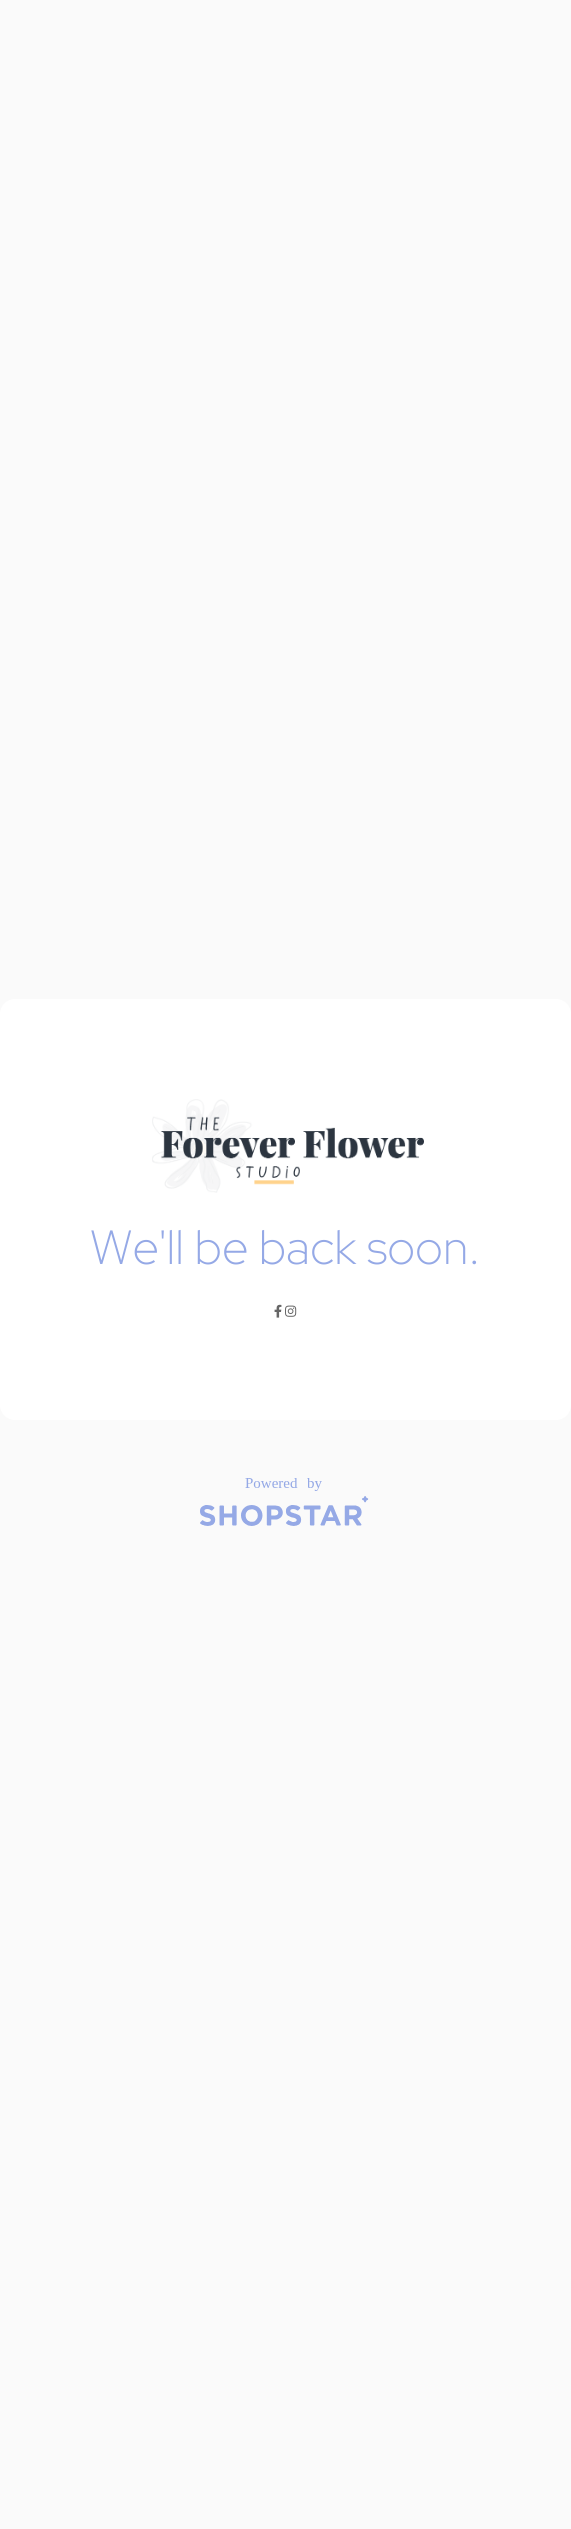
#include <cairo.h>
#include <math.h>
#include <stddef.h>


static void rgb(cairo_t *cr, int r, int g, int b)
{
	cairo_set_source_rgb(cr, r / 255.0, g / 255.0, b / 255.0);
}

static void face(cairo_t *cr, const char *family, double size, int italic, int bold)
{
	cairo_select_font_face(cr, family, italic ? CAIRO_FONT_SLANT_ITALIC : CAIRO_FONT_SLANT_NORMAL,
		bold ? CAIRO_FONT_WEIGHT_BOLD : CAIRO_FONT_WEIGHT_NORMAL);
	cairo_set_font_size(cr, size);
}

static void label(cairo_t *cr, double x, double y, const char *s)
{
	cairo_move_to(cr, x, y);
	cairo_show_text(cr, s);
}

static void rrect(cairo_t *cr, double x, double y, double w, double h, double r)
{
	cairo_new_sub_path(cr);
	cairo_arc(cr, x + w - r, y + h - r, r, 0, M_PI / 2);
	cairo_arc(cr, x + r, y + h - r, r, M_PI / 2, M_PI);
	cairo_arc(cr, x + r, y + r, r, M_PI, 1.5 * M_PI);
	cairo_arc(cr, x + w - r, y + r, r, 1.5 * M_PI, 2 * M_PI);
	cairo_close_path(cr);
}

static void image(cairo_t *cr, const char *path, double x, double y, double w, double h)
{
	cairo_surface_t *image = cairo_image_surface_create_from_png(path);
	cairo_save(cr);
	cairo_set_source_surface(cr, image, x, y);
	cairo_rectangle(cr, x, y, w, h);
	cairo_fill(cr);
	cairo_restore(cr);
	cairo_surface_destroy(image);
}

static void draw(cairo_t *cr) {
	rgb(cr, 250, 250, 250);
	cairo_paint(cr);
	rgb(cr, 255, 255, 255);
	rrect(cr, 0, 999, 571, 421, 15);
	cairo_fill(cr);
	image(cr, "image0.png", 152, 1099, 272, 94);
	face(cr, "Red Hat Display Light", 48, 0, 0);
	rgb(cr, 149, 169, 230);
	label(cr, 90, 1264, "We'll be back soon.");
	image(cr, "image1.png", 274, 1304, 8, 14);
	image(cr, "image2.png", 285, 1305, 12, 12);
	image(cr, "image3.png", 200, 1478, 169, 48);
}

int main(void) {
	cairo_surface_t *surface = cairo_image_surface_create(CAIRO_FORMAT_RGB24, 571, 2529);
	cairo_t *cr = cairo_create(surface);
	cairo_font_options_t *options = cairo_font_options_create();
	cairo_font_options_set_hint_metrics(options, CAIRO_HINT_METRICS_OFF);
	cairo_font_options_set_hint_style(options, CAIRO_HINT_STYLE_NONE);
	cairo_set_font_options(cr, options);
	cairo_set_miter_limit(cr, 4);
	draw(cr);
	cairo_surface_write_to_png(surface, "render.png");
	cairo_font_options_destroy(options);
	cairo_destroy(cr);
	cairo_surface_destroy(surface);
	return 0;
}
